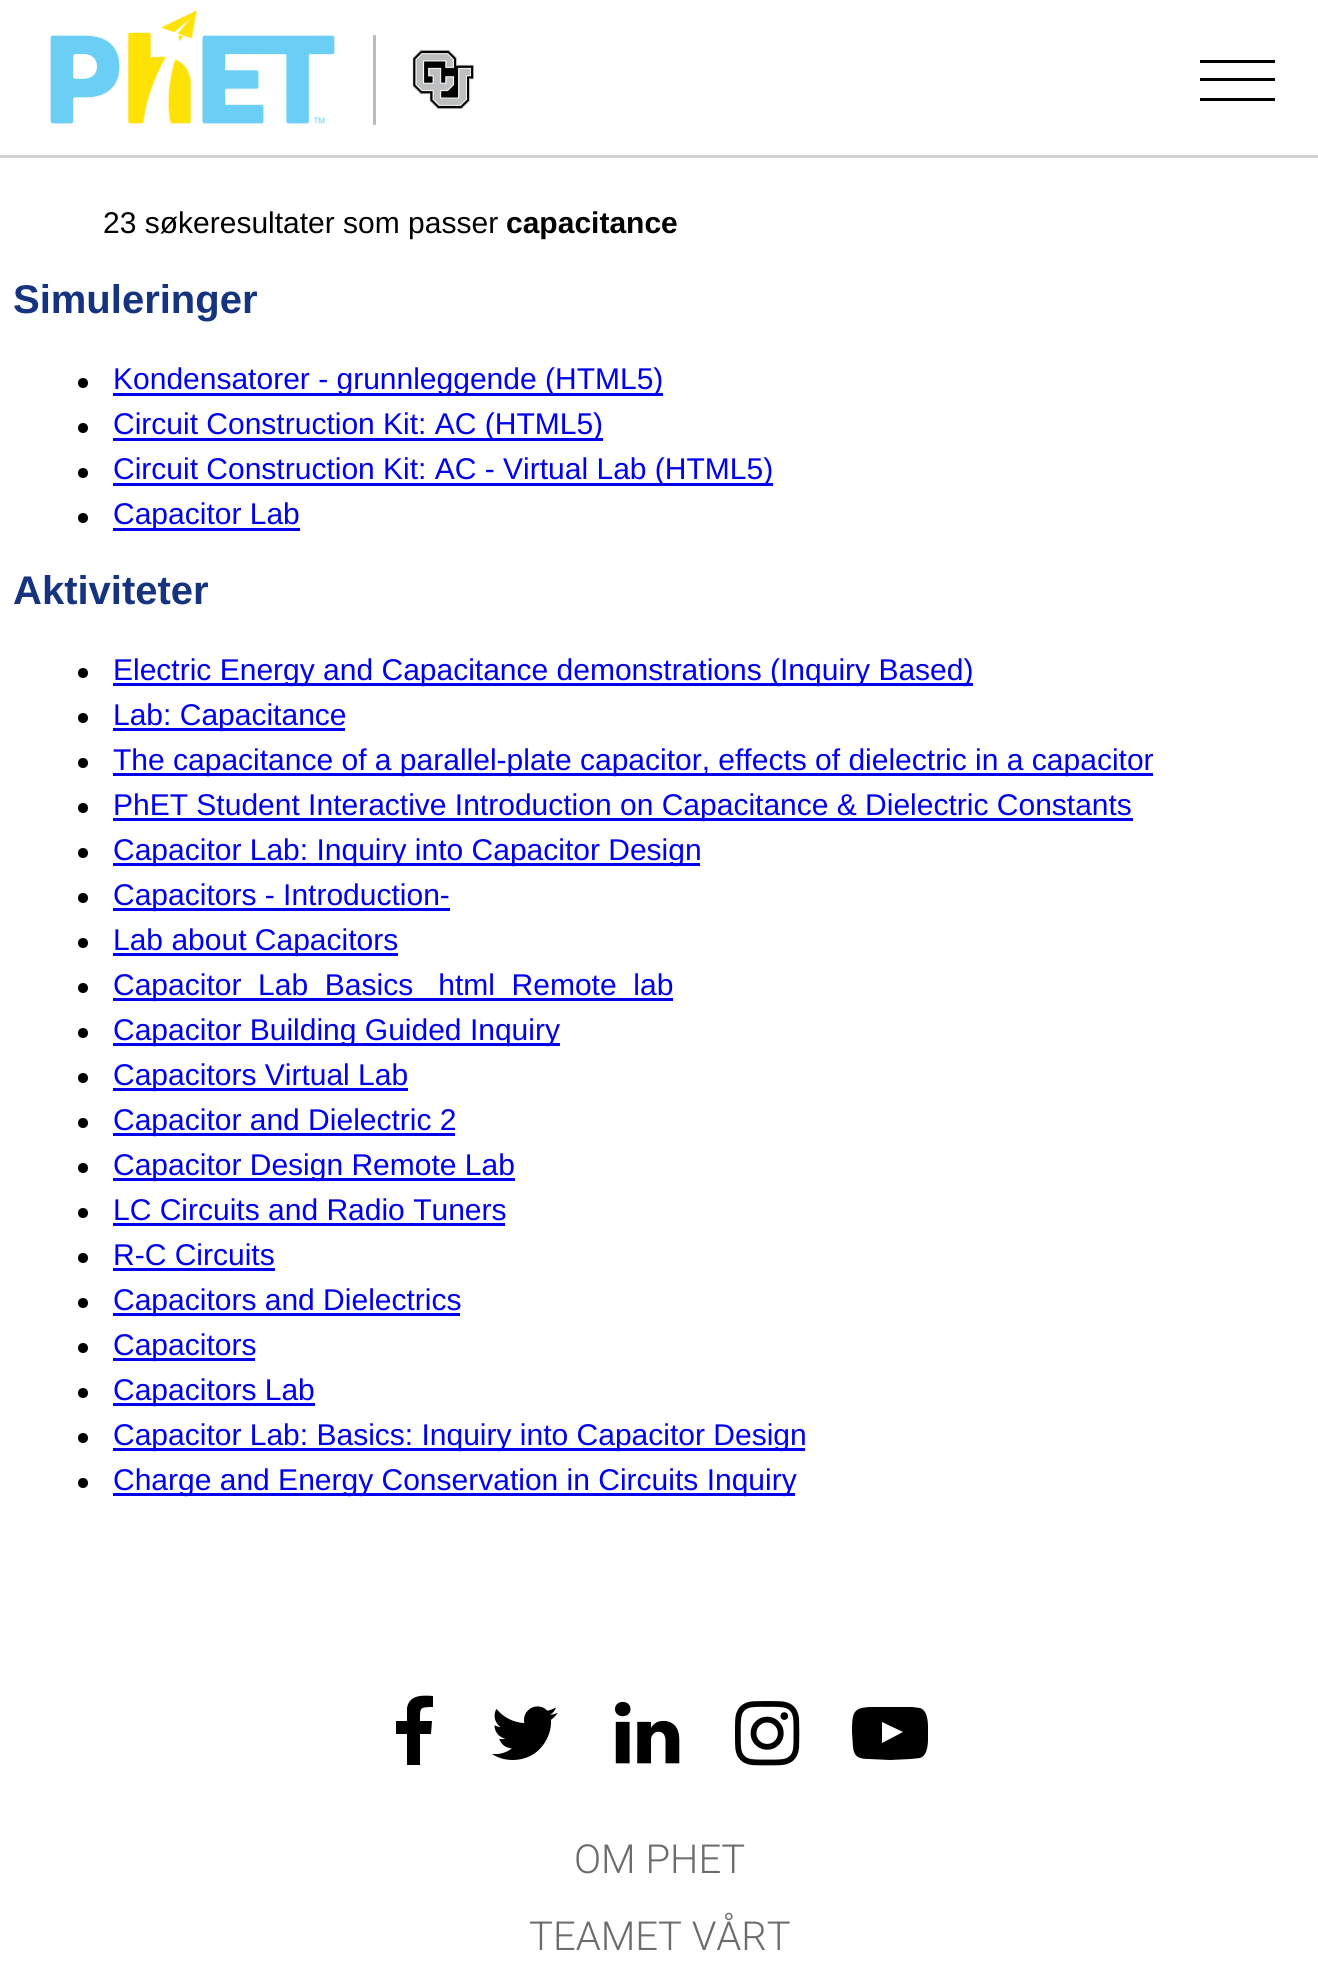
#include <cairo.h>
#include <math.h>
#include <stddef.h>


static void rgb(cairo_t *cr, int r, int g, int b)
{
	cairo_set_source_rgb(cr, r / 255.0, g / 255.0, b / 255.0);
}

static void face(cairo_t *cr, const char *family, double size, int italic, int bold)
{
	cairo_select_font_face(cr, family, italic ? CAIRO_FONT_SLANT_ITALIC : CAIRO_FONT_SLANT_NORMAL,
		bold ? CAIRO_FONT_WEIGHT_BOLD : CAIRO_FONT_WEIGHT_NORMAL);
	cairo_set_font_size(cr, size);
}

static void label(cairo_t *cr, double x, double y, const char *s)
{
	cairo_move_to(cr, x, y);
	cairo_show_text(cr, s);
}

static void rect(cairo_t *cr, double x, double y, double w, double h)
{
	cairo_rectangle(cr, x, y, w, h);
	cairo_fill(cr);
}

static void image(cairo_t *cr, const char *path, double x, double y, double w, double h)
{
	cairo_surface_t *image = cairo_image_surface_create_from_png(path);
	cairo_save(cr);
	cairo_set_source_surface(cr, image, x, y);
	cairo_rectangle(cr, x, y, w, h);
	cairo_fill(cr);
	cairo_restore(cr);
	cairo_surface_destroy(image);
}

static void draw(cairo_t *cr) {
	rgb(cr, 255, 255, 255);
	cairo_paint(cr);
	rgb(cr, 211, 211, 211);
	rect(cr, 0, 155, 1318, 3);
	image(cr, "image0.png", 50, 10, 285, 114);
	rgb(cr, 187, 187, 187);
	rect(cr, 373, 35, 3, 90);
	image(cr, "image1.png", 412, 50, 62, 59);
	rgb(cr, 0, 0, 0);
	rect(cr, 1200, 60, 75, 3);
	rect(cr, 1200, 78, 75, 3);
	rect(cr, 1200, 98, 75, 3);
	face(cr, "Liberation Sans", 30, 0, 0);
	label(cr, 103, 233, "23 søkeresultater som passer");
	face(cr, "Liberation Sans", 30, 0, 1);
	label(cr, 506, 233, "capacitance");
	face(cr, "Liberation Sans", 40, 0, 1);
	rgb(cr, 21, 51, 127);
	label(cr, 13, 313, "Simuleringer");
	rgb(cr, 0, 0, 0);
	cairo_new_path(cr);
	cairo_arc(cr, 83, 383, 5, 0, 2 * M_PI);
	cairo_fill(cr);
	rgb(cr, 0, 0, 238);
	rect(cr, 113, 393, 550, 3);
	face(cr, "Liberation Sans", 30, 0, 0);
	label(cr, 113, 389, "Kondensatorer - grunnleggende (HTML5)");
	rgb(cr, 0, 0, 0);
	cairo_new_path(cr);
	cairo_arc(cr, 83, 428, 5, 0, 2 * M_PI);
	cairo_fill(cr);
	rgb(cr, 0, 0, 238);
	rect(cr, 113, 438, 490, 3);
	label(cr, 113, 434, "Circuit Construction Kit: AC (HTML5)");
	rgb(cr, 0, 0, 0);
	cairo_new_path(cr);
	cairo_arc(cr, 83, 473, 5, 0, 2 * M_PI);
	cairo_fill(cr);
	rgb(cr, 0, 0, 238);
	rect(cr, 113, 483, 660, 3);
	label(cr, 113, 479, "Circuit Construction Kit: AC - Virtual Lab (HTML5)");
	rgb(cr, 0, 0, 0);
	cairo_new_path(cr);
	cairo_arc(cr, 83, 518, 5, 0, 2 * M_PI);
	cairo_fill(cr);
	rgb(cr, 0, 0, 238);
	rect(cr, 113, 528, 187, 3);
	label(cr, 113, 524, "Capacitor Lab");
	face(cr, "Liberation Sans", 40, 0, 1);
	rgb(cr, 21, 51, 127);
	label(cr, 13, 604, "Aktiviteter");
	rgb(cr, 0, 0, 0);
	cairo_new_path(cr);
	cairo_arc(cr, 83, 673, 5, 0, 2 * M_PI);
	cairo_fill(cr);
	rgb(cr, 0, 0, 238);
	rect(cr, 113, 683, 860, 3);
	face(cr, "Liberation Sans", 30, 0, 0);
	label(cr, 113, 680, "Electric Energy and Capacitance demonstrations (Inquiry Based)");
	rgb(cr, 0, 0, 0);
	cairo_new_path(cr);
	cairo_arc(cr, 83, 718, 5, 0, 2 * M_PI);
	cairo_fill(cr);
	rgb(cr, 0, 0, 238);
	rect(cr, 113, 728, 232, 3);
	label(cr, 113, 725, "Lab: Capacitance");
	rgb(cr, 0, 0, 0);
	cairo_new_path(cr);
	cairo_arc(cr, 83, 763, 5, 0, 2 * M_PI);
	cairo_fill(cr);
	rgb(cr, 0, 0, 238);
	rect(cr, 113, 773, 1040, 3);
	label(cr, 113, 770, "The capacitance of a parallel-plate capacitor, effects of dielectric in a capacitor");
	rgb(cr, 0, 0, 0);
	cairo_new_path(cr);
	cairo_arc(cr, 83, 808, 5, 0, 2 * M_PI);
	cairo_fill(cr);
	rgb(cr, 0, 0, 238);
	rect(cr, 113, 818, 1020, 3);
	label(cr, 113, 815, "PhET Student Interactive Introduction on Capacitance & Dielectric Constants");
	rgb(cr, 0, 0, 0);
	cairo_new_path(cr);
	cairo_arc(cr, 83, 853, 5, 0, 2 * M_PI);
	cairo_fill(cr);
	rgb(cr, 0, 0, 238);
	rect(cr, 113, 863, 587, 3);
	label(cr, 113, 860, "Capacitor Lab: Inquiry into Capacitor Design");
	rgb(cr, 0, 0, 0);
	cairo_new_path(cr);
	cairo_arc(cr, 83, 898, 5, 0, 2 * M_PI);
	cairo_fill(cr);
	rgb(cr, 0, 0, 238);
	rect(cr, 113, 908, 337, 3);
	label(cr, 113, 905, "Capacitors - Introduction-");
	rgb(cr, 0, 0, 0);
	cairo_new_path(cr);
	cairo_arc(cr, 83, 943, 5, 0, 2 * M_PI);
	cairo_fill(cr);
	rgb(cr, 0, 0, 238);
	rect(cr, 113, 953, 285, 3);
	label(cr, 113, 950, "Lab about Capacitors");
	rgb(cr, 0, 0, 0);
	cairo_new_path(cr);
	cairo_arc(cr, 83, 988, 5, 0, 2 * M_PI);
	cairo_fill(cr);
	rgb(cr, 0, 0, 238);
	rect(cr, 113, 998, 560, 3);
	label(cr, 113, 995, "Capacitor_Lab_Basics _html_Remote_lab");
	rgb(cr, 0, 0, 0);
	cairo_new_path(cr);
	cairo_arc(cr, 83, 1033, 5, 0, 2 * M_PI);
	cairo_fill(cr);
	rgb(cr, 0, 0, 238);
	rect(cr, 113, 1043, 447, 3);
	label(cr, 113, 1040, "Capacitor Building Guided Inquiry");
	rgb(cr, 0, 0, 0);
	cairo_new_path(cr);
	cairo_arc(cr, 83, 1078, 5, 0, 2 * M_PI);
	cairo_fill(cr);
	rgb(cr, 0, 0, 238);
	rect(cr, 113, 1088, 295, 3);
	label(cr, 113, 1085, "Capacitors Virtual Lab");
	rgb(cr, 0, 0, 0);
	cairo_new_path(cr);
	cairo_arc(cr, 83, 1123, 5, 0, 2 * M_PI);
	cairo_fill(cr);
	rgb(cr, 0, 0, 238);
	rect(cr, 113, 1133, 342, 3);
	label(cr, 113, 1130, "Capacitor and Dielectric 2");
	rgb(cr, 0, 0, 0);
	cairo_new_path(cr);
	cairo_arc(cr, 83, 1168, 5, 0, 2 * M_PI);
	cairo_fill(cr);
	rgb(cr, 0, 0, 238);
	rect(cr, 113, 1178, 402, 3);
	label(cr, 113, 1175, "Capacitor Design Remote Lab");
	rgb(cr, 0, 0, 0);
	cairo_new_path(cr);
	cairo_arc(cr, 83, 1213, 5, 0, 2 * M_PI);
	cairo_fill(cr);
	rgb(cr, 0, 0, 238);
	label(cr, 113, 1220, "LC Circuits and Radio Tuners");
	rect(cr, 113, 1223, 392, 3);
	rgb(cr, 0, 0, 0);
	cairo_new_path(cr);
	cairo_arc(cr, 83, 1258, 5, 0, 2 * M_PI);
	cairo_fill(cr);
	rgb(cr, 0, 0, 238);
	label(cr, 113, 1265, "R-C Circuits");
	rect(cr, 113, 1268, 162, 3);
	rgb(cr, 0, 0, 0);
	cairo_new_path(cr);
	cairo_arc(cr, 83, 1303, 5, 0, 2 * M_PI);
	cairo_fill(cr);
	rgb(cr, 0, 0, 238);
	rect(cr, 113, 1313, 347, 3);
	label(cr, 113, 1310, "Capacitors and Dielectrics");
	rgb(cr, 0, 0, 0);
	cairo_new_path(cr);
	cairo_arc(cr, 83, 1348, 5, 0, 2 * M_PI);
	cairo_fill(cr);
	rgb(cr, 0, 0, 238);
	rect(cr, 113, 1358, 142, 3);
	label(cr, 113, 1355, "Capacitors");
	rgb(cr, 0, 0, 0);
	cairo_new_path(cr);
	cairo_arc(cr, 83, 1393, 5, 0, 2 * M_PI);
	cairo_fill(cr);
	rgb(cr, 0, 0, 238);
	rect(cr, 113, 1403, 202, 3);
	label(cr, 113, 1400, "Capacitors Lab");
	rgb(cr, 0, 0, 0);
	cairo_new_path(cr);
	cairo_arc(cr, 83, 1438, 5, 0, 2 * M_PI);
	cairo_fill(cr);
	rgb(cr, 0, 0, 238);
	rect(cr, 113, 1448, 692, 3);
	label(cr, 113, 1445, "Capacitor Lab: Basics: Inquiry into Capacitor Design");
	rgb(cr, 0, 0, 0);
	cairo_new_path(cr);
	cairo_arc(cr, 83, 1483, 5, 0, 2 * M_PI);
	cairo_fill(cr);
	rgb(cr, 0, 0, 238);
	rect(cr, 113, 1493, 682, 3);
	label(cr, 113, 1490, "Charge and Energy Conservation in Circuits Inquiry");
	rgb(cr, 0, 0, 0);
	cairo_new_path(cr);
	cairo_move_to(cr, 433, 1696);
	cairo_line_to(cr, 433, 1707);
	cairo_curve_to(cr, 419, 1707, 420, 1708, 420, 1721);
	cairo_line_to(cr, 432, 1721);
	cairo_line_to(cr, 431, 1734);
	cairo_line_to(cr, 420, 1734);
	cairo_line_to(cr, 420, 1765);
	cairo_line_to(cr, 407, 1765);
	cairo_line_to(cr, 407, 1734);
	cairo_line_to(cr, 396, 1734);
	cairo_line_to(cr, 396, 1721);
	cairo_line_to(cr, 407, 1721);
	cairo_line_to(cr, 407, 1708);
	cairo_curve_to(cr, 409, 1695, 422, 1695, 433, 1696);
	cairo_close_path(cr);
	cairo_fill(cr);
	image(cr, "image2.png", 492, 1706, 66, 54);
	image(cr, "image3.png", 615, 1701, 65, 63);
	image(cr, "image4.png", 735, 1701, 65, 65);
	cairo_new_path(cr);
	cairo_move_to(cr, 882, 1743);
	cairo_line_to(cr, 903, 1732);
	cairo_line_to(cr, 882, 1722);
	cairo_close_path(cr);
	cairo_move_to(cr, 890, 1707);
	cairo_line_to(cr, 912, 1707);
	cairo_line_to(cr, 920, 1708);
	cairo_curve_to(cr, 929, 1711, 928, 1726, 928, 1733);
	cairo_curve_to(cr, 928, 1740, 929, 1755, 920, 1758);
	cairo_line_to(cr, 911, 1759);
	cairo_line_to(cr, 890, 1760);
	cairo_line_to(cr, 869, 1759);
	cairo_curve_to(cr, 859, 1759, 854, 1757, 853, 1747);
	cairo_line_to(cr, 852, 1732);
	cairo_curve_to(cr, 852, 1713, 853, 1708, 869, 1707);
	cairo_close_path(cr);
	cairo_fill(cr);
	face(cr, "Roboto Light", 40, 0, 0);
	rgb(cr, 108, 108, 108);
	label(cr, 574, 1873, "OM PHET");
	label(cr, 529, 1950, "TEAMET VÅRT");
}

int main(void) {
	cairo_surface_t *surface = cairo_image_surface_create(CAIRO_FORMAT_RGB24, 1318, 1965);
	cairo_t *cr = cairo_create(surface);
	cairo_font_options_t *options = cairo_font_options_create();
	cairo_font_options_set_hint_metrics(options, CAIRO_HINT_METRICS_OFF);
	cairo_font_options_set_hint_style(options, CAIRO_HINT_STYLE_NONE);
	cairo_set_font_options(cr, options);
	cairo_set_miter_limit(cr, 4);
	draw(cr);
	cairo_surface_write_to_png(surface, "render.png");
	cairo_font_options_destroy(options);
	cairo_destroy(cr);
	cairo_surface_destroy(surface);
	return 0;
}
